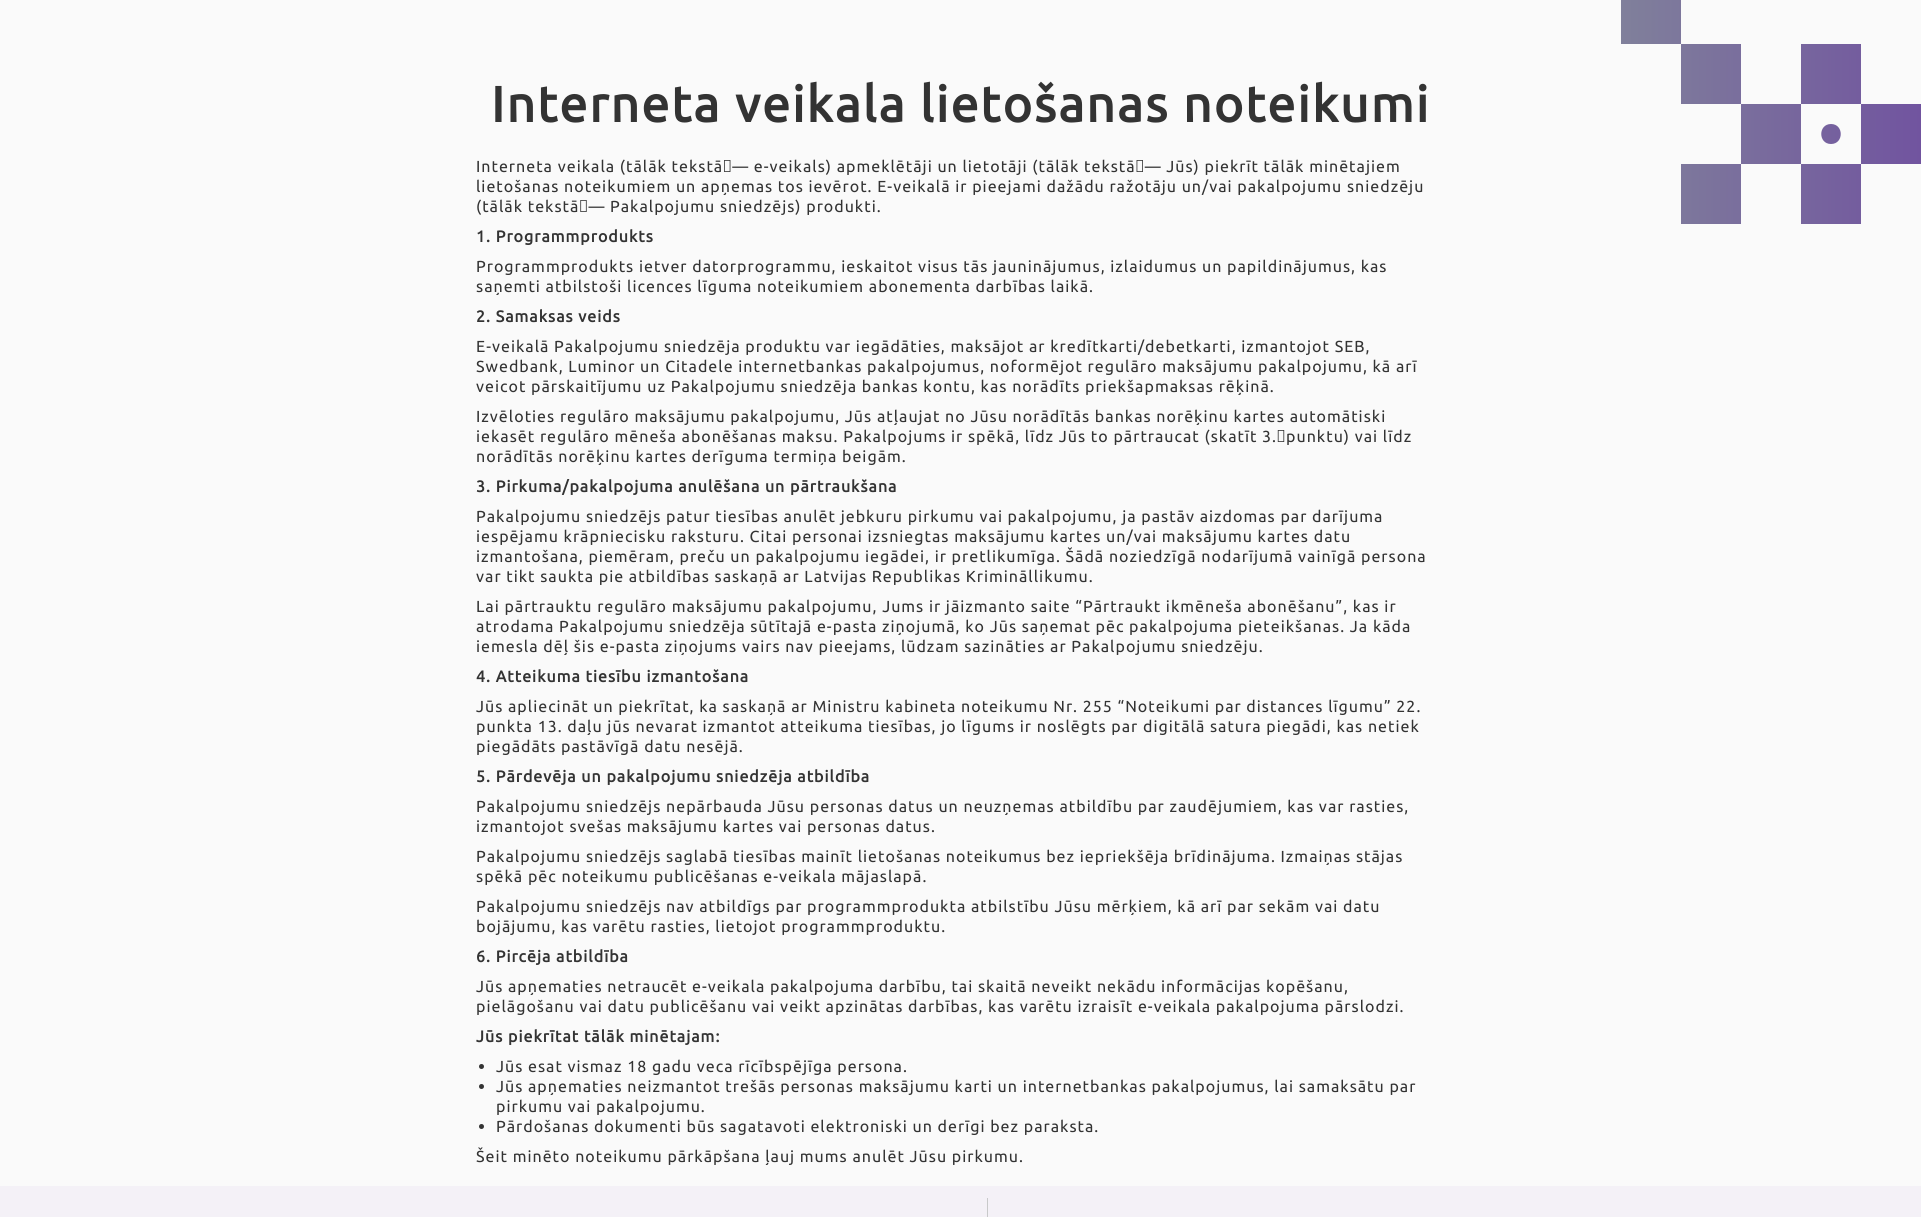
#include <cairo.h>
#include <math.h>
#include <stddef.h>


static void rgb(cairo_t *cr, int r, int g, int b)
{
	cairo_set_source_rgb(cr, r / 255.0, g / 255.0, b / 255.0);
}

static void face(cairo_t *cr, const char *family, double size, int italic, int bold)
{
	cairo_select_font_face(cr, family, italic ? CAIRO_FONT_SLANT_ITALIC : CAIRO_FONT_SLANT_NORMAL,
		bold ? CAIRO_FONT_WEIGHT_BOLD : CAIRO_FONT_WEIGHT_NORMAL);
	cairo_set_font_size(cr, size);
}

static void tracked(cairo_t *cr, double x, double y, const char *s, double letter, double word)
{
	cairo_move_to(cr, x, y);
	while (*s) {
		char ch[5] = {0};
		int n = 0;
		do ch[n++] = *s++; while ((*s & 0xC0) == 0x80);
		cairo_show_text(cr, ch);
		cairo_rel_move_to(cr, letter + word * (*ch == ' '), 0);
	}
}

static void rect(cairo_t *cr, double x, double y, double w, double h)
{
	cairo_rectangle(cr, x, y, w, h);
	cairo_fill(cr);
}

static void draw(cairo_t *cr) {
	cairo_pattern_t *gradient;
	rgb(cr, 250, 250, 250);
	cairo_paint(cr);
	face(cr, "Ubuntu", 50, 0, 1);
	rgb(cr, 51, 51, 51);
	tracked(cr, 491, 122, "Interneta veikala lietošanas noteikumi", 2, 0);
	face(cr, "Ubuntu", 16, 0, 0);
	tracked(cr, 476, 172, "Interneta veikala (tālāk tekstā — e-veikals) apmeklētāji un lietotāji (tālāk tekstā — Jūs) piekrīt tālāk minētajiem", 1, 0);
	tracked(cr, 476, 192, "lietošanas noteikumiem un apņemas tos ievērot. E-veikalā ir pieejami dažādu ražotāju un/vai pakalpojumu sniedzēju", 1, 0);
	tracked(cr, 476, 212, "(tālāk tekstā — Pakalpojumu sniedzējs) produkti.", 1, 0);
	face(cr, "Ubuntu", 16, 0, 1);
	tracked(cr, 476, 242, "1. Programmprodukts", 1, 0);
	face(cr, "Ubuntu", 16, 0, 0);
	tracked(cr, 476, 272, "Programmprodukts ietver datorprogrammu, ieskaitot visus tās jauninājumus, izlaidumus un papildinājumus, kas", 1, 0);
	tracked(cr, 476, 292, "saņemti atbilstoši licences līguma noteikumiem abonementa darbības laikā.", 1, 0);
	face(cr, "Ubuntu", 16, 0, 1);
	tracked(cr, 476, 322, "2. Samaksas veids", 1, 0);
	face(cr, "Ubuntu", 16, 0, 0);
	tracked(cr, 476, 352, "E-veikalā Pakalpojumu sniedzēja produktu var iegādāties, maksājot ar kredītkarti/debetkarti, izmantojot SEB,", 1, 0);
	tracked(cr, 476, 372, "Swedbank, Luminor un Citadele internetbankas pakalpojumus, noformējot regulāro maksājumu pakalpojumu, kā arī", 1, 0);
	tracked(cr, 476, 392, "veicot pārskaitījumu uz Pakalpojumu sniedzēja bankas kontu, kas norādīts priekšapmaksas rēķinā.", 1, 0);
	tracked(cr, 476, 422, "Izvēloties regulāro maksājumu pakalpojumu, Jūs atļaujat no Jūsu norādītās bankas norēķinu kartes automātiski", 1, 0);
	tracked(cr, 476, 442, "iekasēt regulāro mēneša abonēšanas maksu. Pakalpojums ir spēkā, līdz Jūs to pārtraucat (skatīt 3. punktu) vai līdz", 1, 0);
	tracked(cr, 476, 462, "norādītās norēķinu kartes derīguma termiņa beigām.", 1, 0);
	face(cr, "Ubuntu", 16, 0, 1);
	tracked(cr, 476, 492, "3. Pirkuma/pakalpojuma anulēšana un pārtraukšana", 1, 0);
	face(cr, "Ubuntu", 16, 0, 0);
	tracked(cr, 476, 522, "Pakalpojumu sniedzējs patur tiesības anulēt jebkuru pirkumu vai pakalpojumu, ja pastāv aizdomas par darījuma", 1, 0);
	tracked(cr, 476, 542, "iespējamu krāpniecisku raksturu. Citai personai izsniegtas maksājumu kartes un/vai maksājumu kartes datu", 1, 0);
	tracked(cr, 476, 562, "izmantošana, piemēram, preču un pakalpojumu iegādei, ir pretlikumīga. Šādā noziedzīgā nodarījumā vainīgā persona", 1, 0);
	tracked(cr, 476, 582, "var tikt saukta pie atbildības saskaņā ar Latvijas Republikas Krimināllikumu.", 1, 0);
	tracked(cr, 476, 612, "Lai pārtrauktu regulāro maksājumu pakalpojumu, Jums ir jāizmanto saite “Pārtraukt ikmēneša abonēšanu”, kas ir", 1, 0);
	tracked(cr, 476, 632, "atrodama Pakalpojumu sniedzēja sūtītajā e-pasta ziņojumā, ko Jūs saņemat pēc pakalpojuma pieteikšanas. Ja kāda", 1, 0);
	tracked(cr, 476, 652, "iemesla dēļ šis e-pasta ziņojums vairs nav pieejams, lūdzam sazināties ar Pakalpojumu sniedzēju.", 1, 0);
	face(cr, "Ubuntu", 16, 0, 1);
	tracked(cr, 476, 682, "4. Atteikuma tiesību izmantošana", 1, 0);
	face(cr, "Ubuntu", 16, 0, 0);
	tracked(cr, 476, 712, "Jūs apliecināt un piekrītat, ka saskaņā ar Ministru kabineta noteikumu Nr. 255 “Noteikumi par distances līgumu” 22.", 1, 0);
	tracked(cr, 476, 732, "punkta 13. daļu jūs nevarat izmantot atteikuma tiesības, jo līgums ir noslēgts par digitālā satura piegādi, kas netiek", 1, 0);
	tracked(cr, 476, 752, "piegādāts pastāvīgā datu nesējā.", 1, 0);
	face(cr, "Ubuntu", 16, 0, 1);
	tracked(cr, 476, 782, "5. Pārdevēja un pakalpojumu sniedzēja atbildība", 1, 0);
	face(cr, "Ubuntu", 16, 0, 0);
	tracked(cr, 476, 812, "Pakalpojumu sniedzējs nepārbauda Jūsu personas datus un neuzņemas atbildību par zaudējumiem, kas var rasties,", 1, 0);
	tracked(cr, 476, 832, "izmantojot svešas maksājumu kartes vai personas datus.", 1, 0);
	tracked(cr, 476, 862, "Pakalpojumu sniedzējs saglabā tiesības mainīt lietošanas noteikumus bez iepriekšēja brīdinājuma. Izmaiņas stājas", 1, 0);
	tracked(cr, 476, 882, "spēkā pēc noteikumu publicēšanas e-veikala mājaslapā.", 1, 0);
	tracked(cr, 476, 912, "Pakalpojumu sniedzējs nav atbildīgs par programmprodukta atbilstību Jūsu mērķiem, kā arī par sekām vai datu", 1, 0);
	tracked(cr, 476, 932, "bojājumu, kas varētu rasties, lietojot programmproduktu.", 1, 0);
	face(cr, "Ubuntu", 16, 0, 1);
	tracked(cr, 476, 962, "6. Pircēja atbildība", 1, 0);
	face(cr, "Ubuntu", 16, 0, 0);
	tracked(cr, 476, 992, "Jūs apņematies netraucēt e-veikala pakalpojuma darbību, tai skaitā neveikt nekādu informācijas kopēšanu,", 1, 0);
	tracked(cr, 476, 1012, "pielāgošanu vai datu publicēšanu vai veikt apzinātas darbības, kas varētu izraisīt e-veikala pakalpojuma pārslodzi.", 1, 0);
	face(cr, "Ubuntu", 16, 0, 1);
	tracked(cr, 476, 1042, "Jūs piekrītat tālāk minētajam:", 1, 0);
	cairo_new_path(cr);
	cairo_arc(cr, 481.5, 1066.5, 2.5, 0, 2 * M_PI);
	cairo_fill(cr);
	face(cr, "Ubuntu", 16, 0, 0);
	tracked(cr, 496, 1072, "Jūs esat vismaz 18 gadu veca rīcībspējīga persona.", 1, 0);
	cairo_new_path(cr);
	cairo_arc(cr, 481.5, 1086.5, 2.5, 0, 2 * M_PI);
	cairo_fill(cr);
	tracked(cr, 496, 1092, "Jūs apņematies neizmantot trešās personas maksājumu karti un internetbankas pakalpojumus, lai samaksātu par", 1, 0);
	tracked(cr, 496, 1112, "pirkumu vai pakalpojumu.", 1, 0);
	cairo_new_path(cr);
	cairo_arc(cr, 481.5, 1126.5, 2.5, 0, 2 * M_PI);
	cairo_fill(cr);
	tracked(cr, 496, 1132, "Pārdošanas dokumenti būs sagatavoti elektroniski un derīgi bez paraksta.", 1, 0);
	tracked(cr, 476, 1162, "Šeit minēto noteikumu pārkāpšana ļauj mums anulēt Jūsu pirkumu.", 1, 0);
	gradient = cairo_pattern_create_linear(1621, 104, 1921, 104);
	cairo_pattern_add_color_stop_rgba(gradient, 0, 0.502, 0.502, 0.608, 1);
	cairo_pattern_add_color_stop_rgba(gradient, 1, 0.443, 0.329, 0.624, 1);
	cairo_set_source(cr, gradient);
	cairo_pattern_destroy(gradient);
	cairo_set_fill_rule(cr, CAIRO_FILL_RULE_EVEN_ODD);
	cairo_new_path(cr);
	cairo_move_to(cr, 1681, -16);
	cairo_line_to(cr, 1621, -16);
	cairo_line_to(cr, 1621, 44);
	cairo_line_to(cr, 1681, 44);
	cairo_line_to(cr, 1681, 104);
	cairo_line_to(cr, 1741, 104);
	cairo_line_to(cr, 1741, 164);
	cairo_line_to(cr, 1681, 164);
	cairo_line_to(cr, 1681, 224);
	cairo_line_to(cr, 1741, 224);
	cairo_line_to(cr, 1741, 164);
	cairo_line_to(cr, 1801, 164);
	cairo_line_to(cr, 1801, 224);
	cairo_line_to(cr, 1861, 224);
	cairo_line_to(cr, 1861, 164);
	cairo_line_to(cr, 1921, 164);
	cairo_line_to(cr, 1921, 104);
	cairo_line_to(cr, 1861, 104);
	cairo_line_to(cr, 1861, 44);
	cairo_line_to(cr, 1801, 44);
	cairo_line_to(cr, 1801, 104);
	cairo_line_to(cr, 1741, 104);
	cairo_line_to(cr, 1741, 44);
	cairo_line_to(cr, 1681, 44);
	cairo_close_path(cr);
	cairo_move_to(cr, 1801, 104);
	cairo_line_to(cr, 1861, 104);
	cairo_line_to(cr, 1861, 164);
	cairo_line_to(cr, 1801, 164);
	cairo_close_path(cr);
	cairo_move_to(cr, 1831, 124);
	cairo_curve_to(cr, 1818, 124, 1818, 144, 1831, 144);
	cairo_curve_to(cr, 1844, 144, 1844, 124, 1831, 124);
	cairo_close_path(cr);
	cairo_fill(cr);
	rgb(cr, 244, 241, 247);
	rect(cr, 0, 1186, 1921, 31);
	rgb(cr, 200, 201, 202);
	rect(cr, 987, 1198, 1, 19);
}

int main(void) {
	cairo_surface_t *surface = cairo_image_surface_create(CAIRO_FORMAT_RGB24, 1921, 1217);
	cairo_t *cr = cairo_create(surface);
	cairo_font_options_t *options = cairo_font_options_create();
	cairo_font_options_set_hint_metrics(options, CAIRO_HINT_METRICS_OFF);
	cairo_font_options_set_hint_style(options, CAIRO_HINT_STYLE_NONE);
	cairo_set_font_options(cr, options);
	cairo_set_miter_limit(cr, 4);
	draw(cr);
	cairo_surface_write_to_png(surface, "render.png");
	cairo_font_options_destroy(options);
	cairo_destroy(cr);
	cairo_surface_destroy(surface);
	return 0;
}
